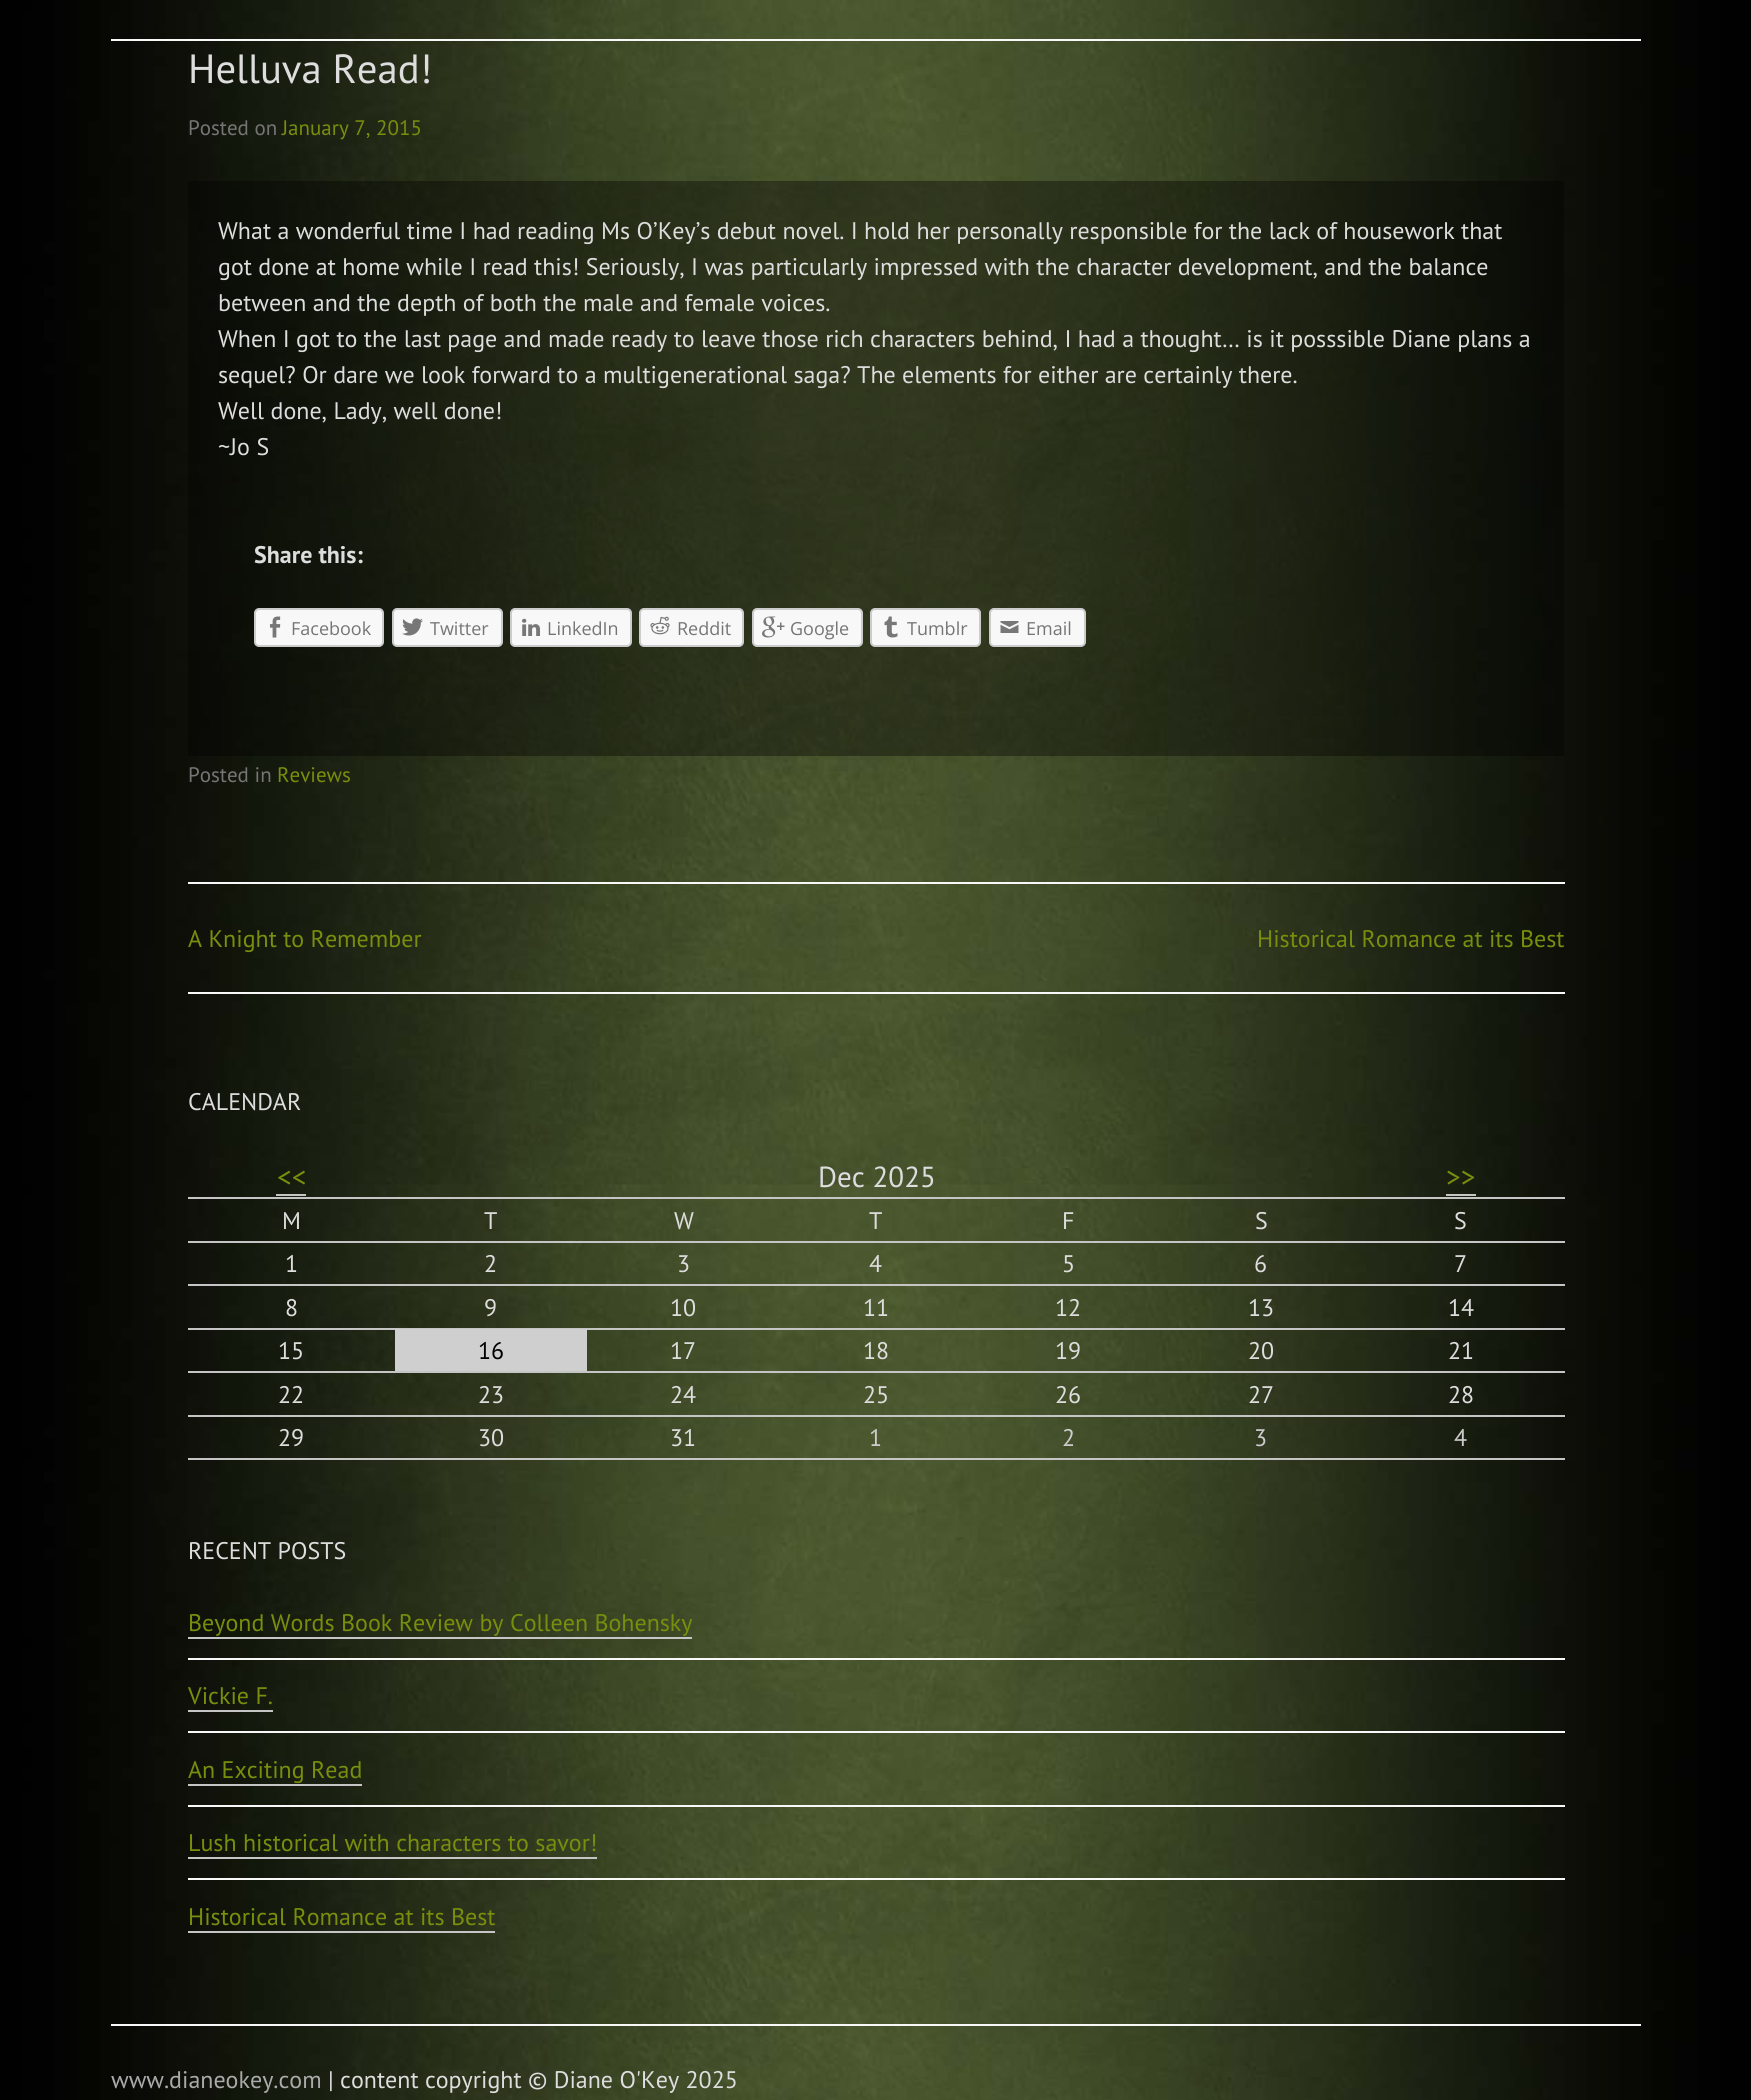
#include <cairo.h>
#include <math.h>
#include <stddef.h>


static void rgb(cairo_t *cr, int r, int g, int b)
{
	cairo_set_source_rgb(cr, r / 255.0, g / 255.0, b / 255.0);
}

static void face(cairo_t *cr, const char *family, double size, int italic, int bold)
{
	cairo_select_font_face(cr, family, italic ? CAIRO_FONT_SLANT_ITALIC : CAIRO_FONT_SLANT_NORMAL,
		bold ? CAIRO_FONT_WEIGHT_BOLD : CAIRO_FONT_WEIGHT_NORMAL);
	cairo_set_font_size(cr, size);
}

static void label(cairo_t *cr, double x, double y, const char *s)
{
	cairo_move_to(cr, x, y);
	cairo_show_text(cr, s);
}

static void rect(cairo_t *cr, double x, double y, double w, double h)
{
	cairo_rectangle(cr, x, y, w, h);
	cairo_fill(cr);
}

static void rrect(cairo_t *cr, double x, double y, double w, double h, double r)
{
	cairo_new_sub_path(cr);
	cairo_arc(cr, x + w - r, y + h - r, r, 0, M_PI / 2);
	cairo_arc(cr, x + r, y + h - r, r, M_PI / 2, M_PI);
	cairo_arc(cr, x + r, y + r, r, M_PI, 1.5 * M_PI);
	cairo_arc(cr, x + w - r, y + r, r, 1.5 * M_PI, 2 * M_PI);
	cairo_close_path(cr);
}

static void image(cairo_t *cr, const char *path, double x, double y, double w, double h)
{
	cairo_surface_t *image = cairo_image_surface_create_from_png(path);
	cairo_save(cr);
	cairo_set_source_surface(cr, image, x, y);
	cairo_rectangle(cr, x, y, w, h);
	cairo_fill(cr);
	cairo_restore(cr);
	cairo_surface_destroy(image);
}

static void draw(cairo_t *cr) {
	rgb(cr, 255, 255, 255);
	cairo_paint(cr);
	image(cr, "image0.png", 0, 0, 1751, 2100);
	rgb(cr, 248, 248, 248);
	rect(cr, 111, 39, 1530, 2);
	face(cr, "PT Sans", 40.75, 0, 0);
	rgb(cr, 221, 221, 221);
	label(cr, 188, 83, "Helluva Read!");
	face(cr, "PT Sans", 21, 0, 0);
	rgb(cr, 117, 117, 117);
	label(cr, 188, 135, "Posted on");
	rgb(cr, 119, 143, 12);
	label(cr, 282, 135, "January 7, 2015");
	cairo_set_source_rgba(cr, 0, 0, 0, 0.37);
	rect(cr, 188, 181, 1376, 575);
	face(cr, "PT Sans", 24, 0, 0);
	rgb(cr, 221, 221, 221);
	label(cr, 218, 239, "What a wonderful time I had reading Ms O’Key’s debut novel. I hold her personally responsible for the lack of housework that");
	label(cr, 218, 275, "got done at home while I read this! Seriously, I was particularly impressed with the character development, and the balance");
	label(cr, 218, 311, "between and the depth of both the male and female voices.");
	label(cr, 218, 347, "When I got to the last page and made ready to leave those rich characters behind, I had a thought… is it posssible Diane plans a");
	label(cr, 218, 383, "sequel? Or dare we look forward to a multigenerational saga? The elements for either are certainly there.");
	label(cr, 218, 419, "Well done, Lady, well done!");
	label(cr, 218, 455, "~Jo S");
	face(cr, "PT Sans", 24, 0, 1);
	label(cr, 254, 563, "Share this:");
	rgb(cr, 248, 248, 248);
	rrect(cr, 255, 609, 128, 37, 4);
	cairo_fill_preserve(cr);
	rgb(cr, 204, 204, 204);
	cairo_stroke(cr);
	image(cr, "image1.png", 270, 616, 11, 22);
	face(cr, "Open Sans", 18, 0, 0);
	rgb(cr, 117, 117, 117);
	label(cr, 291, 635, "Facebook");
	cairo_set_source_rgba(cr, 0, 0, 0, 0.08);
	cairo_new_path(cr);
	cairo_move_to(cr, 392, 644);
	cairo_curve_to(cr, 393, 646, 395, 648, 397, 648);
	cairo_line_to(cr, 498, 648);
	cairo_curve_to(cr, 501, 648, 503, 646, 503, 643);
	cairo_line_to(cr, 503, 614);
	cairo_line_to(cr, 502, 612);
	cairo_line_to(cr, 502, 637);
	cairo_curve_to(cr, 502, 640, 503, 646, 498, 646);
	cairo_line_to(cr, 413, 646);
	cairo_curve_to(cr, 411, 646, 395, 649, 392, 644);
	cairo_close_path(cr);
	cairo_fill(cr);
	rgb(cr, 248, 248, 248);
	rrect(cr, 393, 609, 109, 37, 4);
	cairo_fill_preserve(cr);
	rgb(cr, 204, 204, 204);
	cairo_stroke(cr);
	image(cr, "image2.png", 402, 618, 21, 18);
	rgb(cr, 117, 117, 117);
	label(cr, 430, 635, "Twitter");
	cairo_set_source_rgba(cr, 0, 0, 0, 0.08);
	cairo_new_path(cr);
	cairo_move_to(cr, 510, 642);
	cairo_line_to(cr, 510, 643);
	cairo_curve_to(cr, 510, 646, 512, 648, 515, 648);
	cairo_line_to(cr, 627, 648);
	cairo_curve_to(cr, 630, 648, 632, 646, 632, 643);
	cairo_line_to(cr, 632, 614);
	cairo_line_to(cr, 631, 612);
	cairo_line_to(cr, 632, 637);
	cairo_curve_to(cr, 632, 640, 632, 646, 627, 646);
	cairo_line_to(cr, 533, 646);
	cairo_curve_to(cr, 524, 646, 510, 650, 510, 642);
	cairo_close_path(cr);
	cairo_fill(cr);
	rgb(cr, 248, 248, 248);
	rrect(cr, 511, 609, 120, 37, 4);
	cairo_fill_preserve(cr);
	rgb(cr, 204, 204, 204);
	cairo_stroke(cr);
	image(cr, "image3.png", 522, 618, 18, 18);
	rgb(cr, 117, 117, 117);
	label(cr, 547, 635, "LinkedIn");
	cairo_set_source_rgba(cr, 0, 0, 0, 0.08);
	cairo_new_path(cr);
	cairo_move_to(cr, 639, 642);
	cairo_curve_to(cr, 639, 652, 655, 648, 660, 648);
	cairo_line_to(cr, 723, 648);
	cairo_curve_to(cr, 728, 648, 744, 652, 744, 642);
	cairo_curve_to(cr, 744, 644, 742, 646, 740, 646);
	cairo_line_to(cr, 644, 646);
	cairo_curve_to(cr, 641, 646, 639, 644, 639, 642);
	cairo_close_path(cr);
	cairo_fill(cr);
	rgb(cr, 248, 248, 248);
	rrect(cr, 640, 609, 103, 37, 4);
	cairo_fill_preserve(cr);
	rgb(cr, 204, 204, 204);
	cairo_stroke(cr);
	image(cr, "image4.png", 650, 616, 20, 19);
	rgb(cr, 117, 117, 117);
	label(cr, 677, 635, "Reddit");
	cairo_set_source_rgba(cr, 0, 0, 0, 0.08);
	cairo_new_path(cr);
	cairo_move_to(cr, 752, 644);
	cairo_curve_to(cr, 753, 646, 755, 648, 757, 648);
	cairo_line_to(cr, 858, 648);
	cairo_curve_to(cr, 861, 648, 863, 646, 863, 643);
	cairo_line_to(cr, 863, 614);
	cairo_line_to(cr, 862, 612);
	cairo_line_to(cr, 862, 637);
	cairo_curve_to(cr, 862, 640, 863, 646, 858, 646);
	cairo_line_to(cr, 773, 646);
	cairo_curve_to(cr, 771, 646, 755, 649, 752, 644);
	cairo_close_path(cr);
	cairo_fill(cr);
	rgb(cr, 248, 248, 248);
	rrect(cr, 753, 609, 109, 37, 4);
	cairo_fill_preserve(cr);
	rgb(cr, 204, 204, 204);
	cairo_stroke(cr);
	image(cr, "image5.png", 762, 616, 23, 22);
	rgb(cr, 117, 117, 117);
	label(cr, 790, 635, "Google");
	cairo_set_source_rgba(cr, 0, 0, 0, 0.08);
	cairo_new_path(cr);
	cairo_move_to(cr, 870, 642);
	cairo_curve_to(cr, 870, 652, 887, 648, 892, 648);
	cairo_line_to(cr, 959, 648);
	cairo_curve_to(cr, 964, 648, 981, 652, 981, 642);
	cairo_curve_to(cr, 981, 644, 979, 646, 976, 646);
	cairo_line_to(cr, 874, 646);
	cairo_curve_to(cr, 872, 646, 870, 644, 870, 642);
	cairo_close_path(cr);
	cairo_fill(cr);
	rgb(cr, 248, 248, 248);
	rrect(cr, 871, 609, 109, 37, 4);
	cairo_fill_preserve(cr);
	rgb(cr, 204, 204, 204);
	cairo_stroke(cr);
	image(cr, "image6.png", 884, 616, 14, 22);
	rgb(cr, 117, 117, 117);
	label(cr, 907, 635, "Tumblr");
	cairo_set_source_rgba(cr, 0, 0, 0, 0.08);
	cairo_new_path(cr);
	cairo_move_to(cr, 989, 644);
	cairo_curve_to(cr, 990, 646, 992, 648, 994, 648);
	cairo_line_to(cr, 1081, 648);
	cairo_curve_to(cr, 1084, 648, 1086, 646, 1086, 643);
	cairo_line_to(cr, 1086, 642);
	cairo_curve_to(cr, 1086, 644, 1084, 646, 1082, 646);
	cairo_line_to(cr, 993, 646);
	cairo_curve_to(cr, 991, 646, 990, 646, 989, 644);
	cairo_close_path(cr);
	cairo_fill(cr);
	rgb(cr, 248, 248, 248);
	rrect(cr, 990, 609, 95, 37, 4);
	cairo_fill_preserve(cr);
	rgb(cr, 204, 204, 204);
	cairo_stroke(cr);
	image(cr, "image7.png", 1000, 621, 19, 12);
	rgb(cr, 117, 117, 117);
	label(cr, 1026, 635, "Email");
	face(cr, "PT Sans", 21, 0, 0);
	label(cr, 188, 782, "Posted in");
	rgb(cr, 119, 143, 12);
	label(cr, 277, 782, "Reviews");
	rgb(cr, 248, 248, 248);
	rect(cr, 188, 882, 1377, 2);
	rect(cr, 188, 992, 1377, 2);
	face(cr, "PT Sans", 24, 0, 0);
	rgb(cr, 119, 143, 12);
	label(cr, 188, 947, "A Knight to Remember");
	label(cr, 1257, 947, "Historical Romance at its Best");
	rgb(cr, 221, 221, 221);
	label(cr, 188, 1110, "CALENDAR");
	rgb(cr, 197, 197, 197);
	rect(cr, 188, 1197, 1377, 2);
	face(cr, "PT Sans", 29, 0, 0);
	rgb(cr, 119, 143, 12);
	label(cr, 277, 1187, "<<");
	rgb(cr, 197, 197, 197);
	rect(cr, 276, 1194, 30, 2);
	rgb(cr, 221, 221, 221);
	label(cr, 818, 1187, "Dec 2025");
	rgb(cr, 119, 143, 12);
	label(cr, 1446, 1187, ">>");
	rgb(cr, 197, 197, 197);
	rect(cr, 1446, 1194, 30, 2);
	rect(cr, 188, 1241, 1377, 2);
	face(cr, "PT Sans", 24, 0, 0);
	rgb(cr, 221, 221, 221);
	label(cr, 282, 1229, "M");
	label(cr, 484, 1229, "T");
	label(cr, 674, 1229, "W");
	label(cr, 869, 1229, "T");
	label(cr, 1062, 1229, "F");
	label(cr, 1255, 1229, "S");
	label(cr, 1454, 1229, "S");
	rgb(cr, 197, 197, 197);
	rect(cr, 188, 1284, 1377, 2);
	rgb(cr, 221, 221, 221);
	label(cr, 285, 1272, "1");
	label(cr, 484, 1272, "2");
	label(cr, 677, 1272, "3");
	label(cr, 869, 1272, "4");
	label(cr, 1062, 1272, "5");
	label(cr, 1254, 1272, "6");
	label(cr, 1454, 1272, "7");
	rgb(cr, 197, 197, 197);
	rect(cr, 188, 1328, 207, 2);
	rgb(cr, 221, 221, 221);
	label(cr, 285, 1316, "8");
	rgb(cr, 197, 197, 197);
	rect(cr, 395, 1328, 192, 1);
	rgb(cr, 221, 221, 221);
	label(cr, 484, 1316, "9");
	rgb(cr, 197, 197, 197);
	rect(cr, 587, 1328, 978, 2);
	rgb(cr, 221, 221, 221);
	label(cr, 670, 1316, "10");
	label(cr, 863, 1316, "11");
	label(cr, 1055, 1316, "12");
	label(cr, 1248, 1316, "13");
	label(cr, 1448, 1316, "14");
	rgb(cr, 197, 197, 197);
	rect(cr, 188, 1371, 1377, 2);
	rgb(cr, 221, 221, 221);
	label(cr, 278, 1359, "15");
	rgb(cr, 207, 207, 207);
	rect(cr, 395, 1329, 192, 42);
	rgb(cr, 0, 0, 0);
	label(cr, 478, 1359, "16");
	rgb(cr, 221, 221, 221);
	label(cr, 670, 1359, "17");
	label(cr, 863, 1359, "18");
	label(cr, 1055, 1359, "19");
	label(cr, 1248, 1359, "20");
	label(cr, 1448, 1359, "21");
	rgb(cr, 197, 197, 197);
	rect(cr, 188, 1415, 1377, 2);
	rgb(cr, 221, 221, 221);
	label(cr, 278, 1403, "22");
	label(cr, 478, 1403, "23");
	label(cr, 670, 1403, "24");
	label(cr, 863, 1403, "25");
	label(cr, 1055, 1403, "26");
	label(cr, 1248, 1403, "27");
	label(cr, 1448, 1403, "28");
	rgb(cr, 197, 197, 197);
	rect(cr, 188, 1458, 1377, 2);
	rgb(cr, 221, 221, 221);
	label(cr, 278, 1446, "29");
	label(cr, 478, 1446, "30");
	label(cr, 670, 1446, "31");
	rgb(cr, 204, 204, 204);
	label(cr, 869, 1446, "1");
	label(cr, 1062, 1446, "2");
	label(cr, 1254, 1446, "3");
	label(cr, 1454, 1446, "4");
	rgb(cr, 221, 221, 221);
	label(cr, 188, 1559, "RECENT POSTS");
	rgb(cr, 119, 143, 12);
	label(cr, 188, 1631, "Beyond Words Book Review by Colleen Bohensky");
	rgb(cr, 197, 197, 197);
	rect(cr, 188, 1637, 504, 2);
	rgb(cr, 248, 248, 248);
	rect(cr, 188, 1658, 1377, 2);
	rgb(cr, 119, 143, 12);
	label(cr, 188, 1704, "Vickie F.");
	rgb(cr, 197, 197, 197);
	rect(cr, 188, 1710, 85, 2);
	rgb(cr, 248, 248, 248);
	rect(cr, 188, 1731, 1377, 2);
	rgb(cr, 119, 143, 12);
	label(cr, 188, 1778, "An Exciting Read");
	rgb(cr, 197, 197, 197);
	rect(cr, 188, 1784, 174, 2);
	rgb(cr, 248, 248, 248);
	rect(cr, 188, 1805, 1377, 2);
	rgb(cr, 119, 143, 12);
	label(cr, 188, 1851, "Lush historical with characters to savor!");
	rgb(cr, 197, 197, 197);
	rect(cr, 188, 1857, 409, 2);
	rgb(cr, 248, 248, 248);
	rect(cr, 188, 1878, 1377, 2);
	rgb(cr, 119, 143, 12);
	label(cr, 188, 1925, "Historical Romance at its Best");
	rgb(cr, 197, 197, 197);
	rect(cr, 188, 1931, 307, 2);
	rgb(cr, 248, 248, 248);
	rect(cr, 111, 2024, 1530, 2);
	rgb(cr, 170, 170, 170);
	label(cr, 111, 2088, "www.dianeokey.com");
	rgb(cr, 221, 221, 221);
	label(cr, 328, 2088, "| content copyright © Diane O'Key 2025");
}

int main(void) {
	cairo_surface_t *surface = cairo_image_surface_create(CAIRO_FORMAT_RGB24, 1751, 2100);
	cairo_t *cr = cairo_create(surface);
	cairo_font_options_t *options = cairo_font_options_create();
	cairo_font_options_set_hint_metrics(options, CAIRO_HINT_METRICS_OFF);
	cairo_font_options_set_hint_style(options, CAIRO_HINT_STYLE_NONE);
	cairo_set_font_options(cr, options);
	cairo_set_miter_limit(cr, 4);
	draw(cr);
	cairo_surface_write_to_png(surface, "render.png");
	cairo_font_options_destroy(options);
	cairo_destroy(cr);
	cairo_surface_destroy(surface);
	return 0;
}
